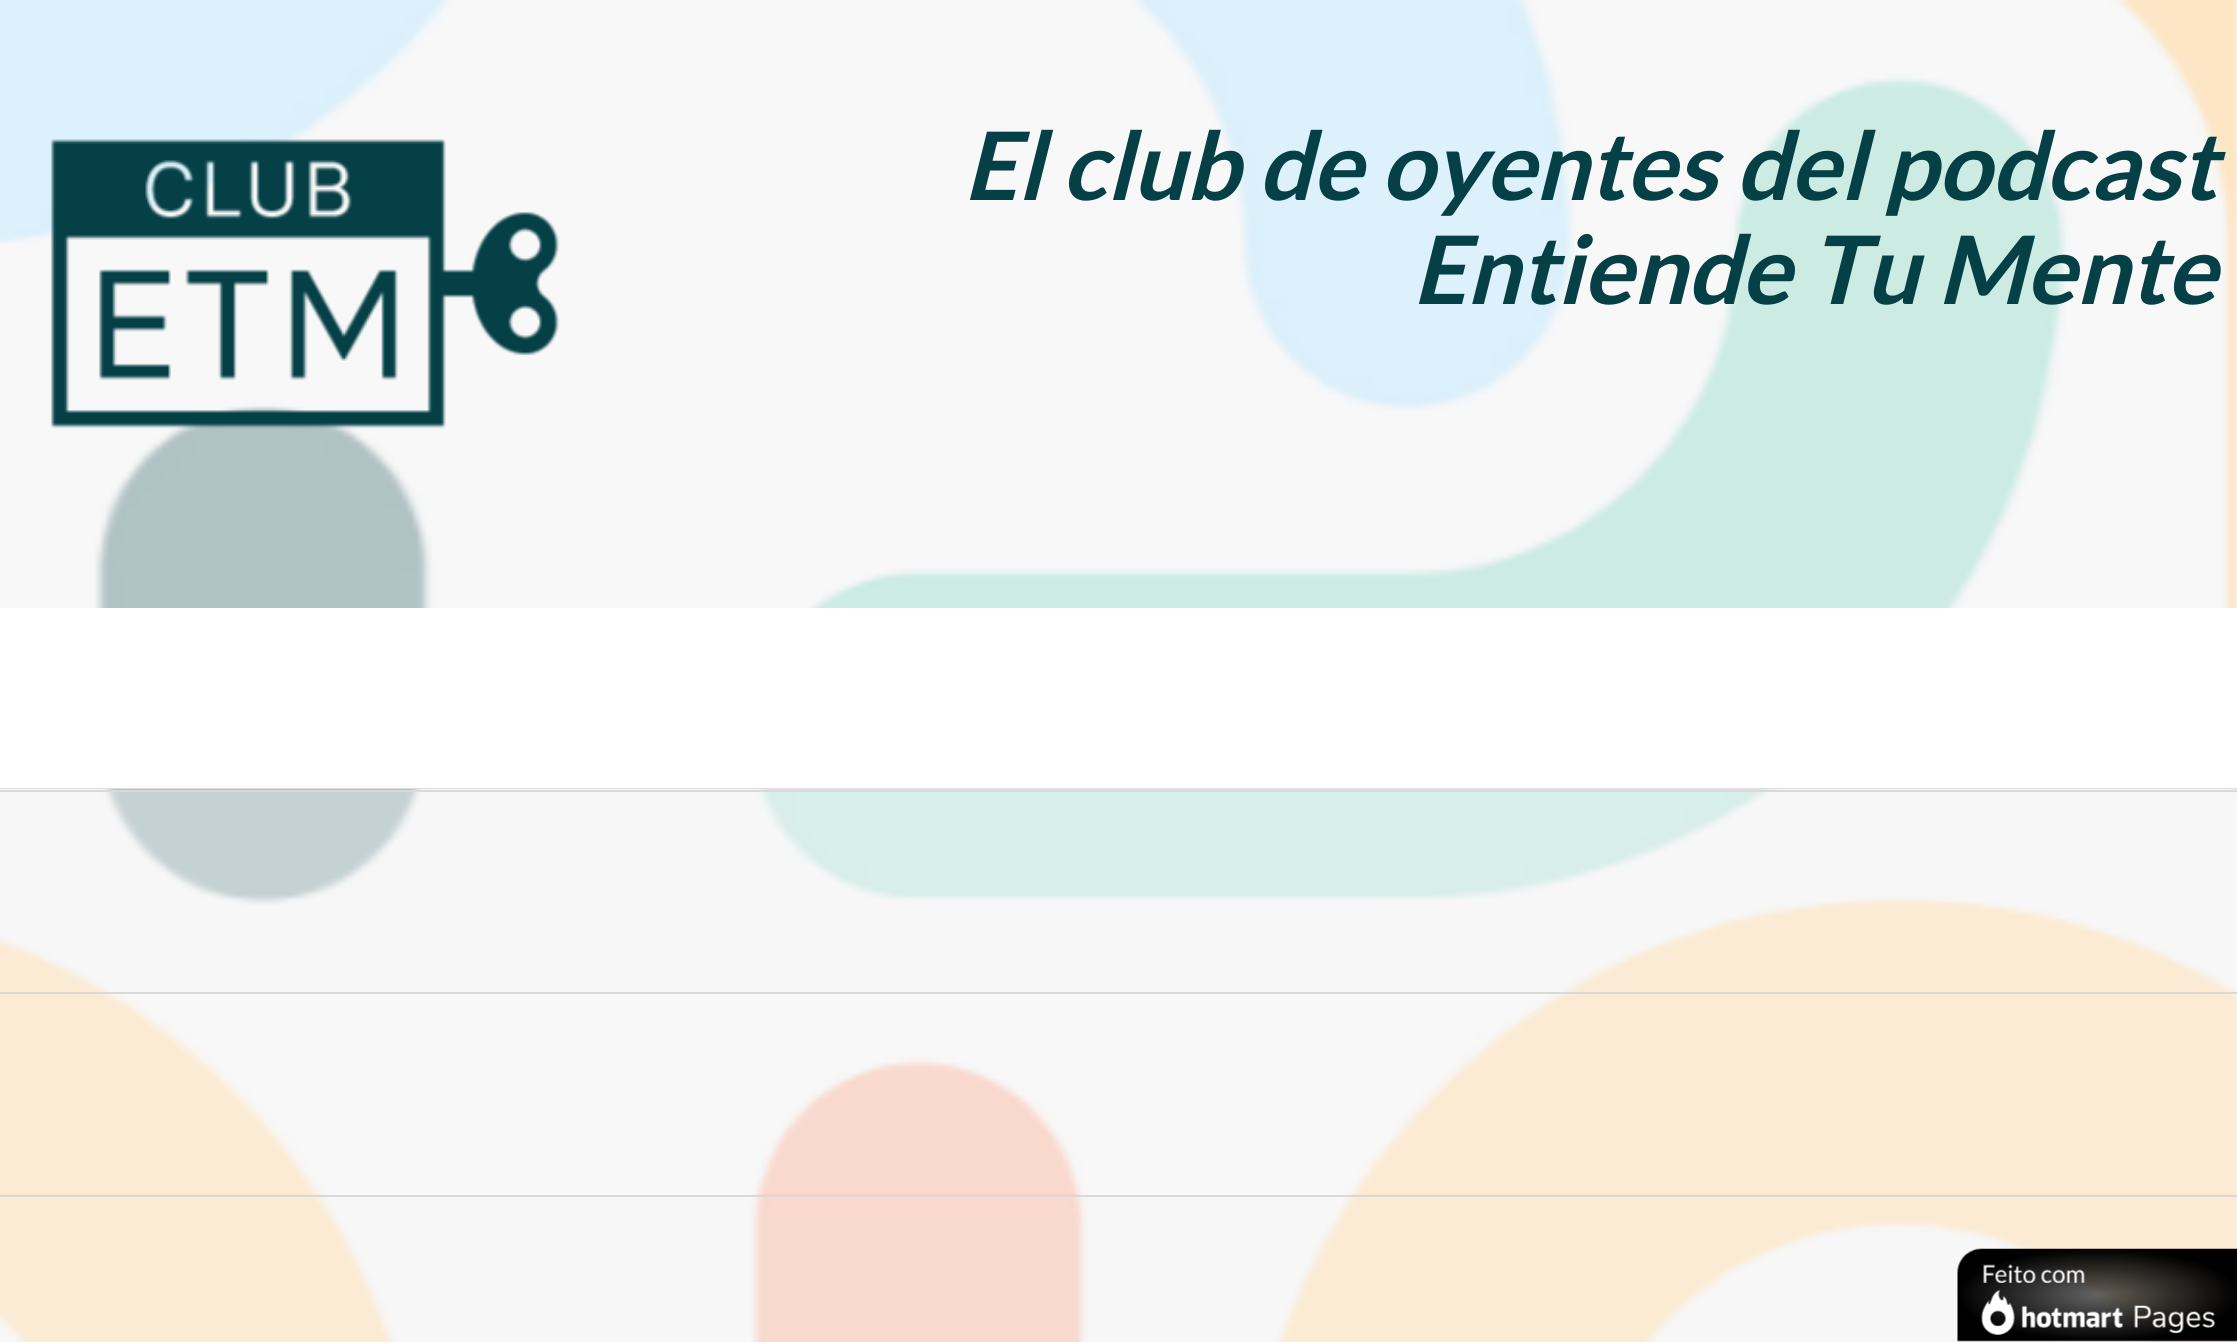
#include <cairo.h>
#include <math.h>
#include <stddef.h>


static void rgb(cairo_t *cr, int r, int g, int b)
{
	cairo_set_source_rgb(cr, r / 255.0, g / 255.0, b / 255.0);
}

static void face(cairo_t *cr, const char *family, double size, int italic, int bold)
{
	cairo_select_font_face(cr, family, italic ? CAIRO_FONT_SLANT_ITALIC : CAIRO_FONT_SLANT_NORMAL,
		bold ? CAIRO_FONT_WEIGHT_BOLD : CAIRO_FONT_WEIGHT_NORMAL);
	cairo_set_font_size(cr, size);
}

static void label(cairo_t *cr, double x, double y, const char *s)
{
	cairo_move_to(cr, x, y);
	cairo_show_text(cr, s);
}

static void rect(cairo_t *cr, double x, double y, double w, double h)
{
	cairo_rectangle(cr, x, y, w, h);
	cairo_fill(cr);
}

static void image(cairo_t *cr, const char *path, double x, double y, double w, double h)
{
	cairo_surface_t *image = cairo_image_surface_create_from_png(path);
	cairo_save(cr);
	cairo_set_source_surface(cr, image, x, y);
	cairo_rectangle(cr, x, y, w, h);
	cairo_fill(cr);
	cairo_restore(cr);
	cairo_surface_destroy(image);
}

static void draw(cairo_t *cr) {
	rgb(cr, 255, 255, 255);
	cairo_paint(cr);
	image(cr, "image0.png", 0, 0, 2237, 608);
	image(cr, "image1.png", 50, 139, 510, 290);
	face(cr, "Lato", 94.5, 1, 1);
	rgb(cr, 5, 64, 70);
	label(cr, 963, 200, "El club de oyentes del podcast");
	label(cr, 1412, 304, "Entiende Tu Mente");
	rgb(cr, 222, 222, 222);
	rect(cr, 0, 788, 2237, 2);
	image(cr, "image2.png", 0, 789, 2237, 203);
	rgb(cr, 217, 217, 217);
	rect(cr, 0, 790, 2237, 2);
	image(cr, "image3.png", 0, 994, 2237, 201);
	cairo_set_source_rgba(cr, 0.965, 0.965, 0.965, 0.3);
	rect(cr, 0, 994, 2237, 201);
	rgb(cr, 217, 217, 217);
	rect(cr, 0, 992, 2237, 2);
	image(cr, "image4.png", 0, 1194, 2237, 148);
	rect(cr, 0, 1195, 2237, 2);
	image(cr, "image5.png", 1957, 1248, 280, 94);
}

int main(void) {
	cairo_surface_t *surface = cairo_image_surface_create(CAIRO_FORMAT_RGB24, 2237, 1342);
	cairo_t *cr = cairo_create(surface);
	cairo_font_options_t *options = cairo_font_options_create();
	cairo_font_options_set_hint_metrics(options, CAIRO_HINT_METRICS_OFF);
	cairo_font_options_set_hint_style(options, CAIRO_HINT_STYLE_NONE);
	cairo_set_font_options(cr, options);
	cairo_set_miter_limit(cr, 4);
	draw(cr);
	cairo_surface_write_to_png(surface, "render.png");
	cairo_font_options_destroy(options);
	cairo_destroy(cr);
	cairo_surface_destroy(surface);
	return 0;
}
